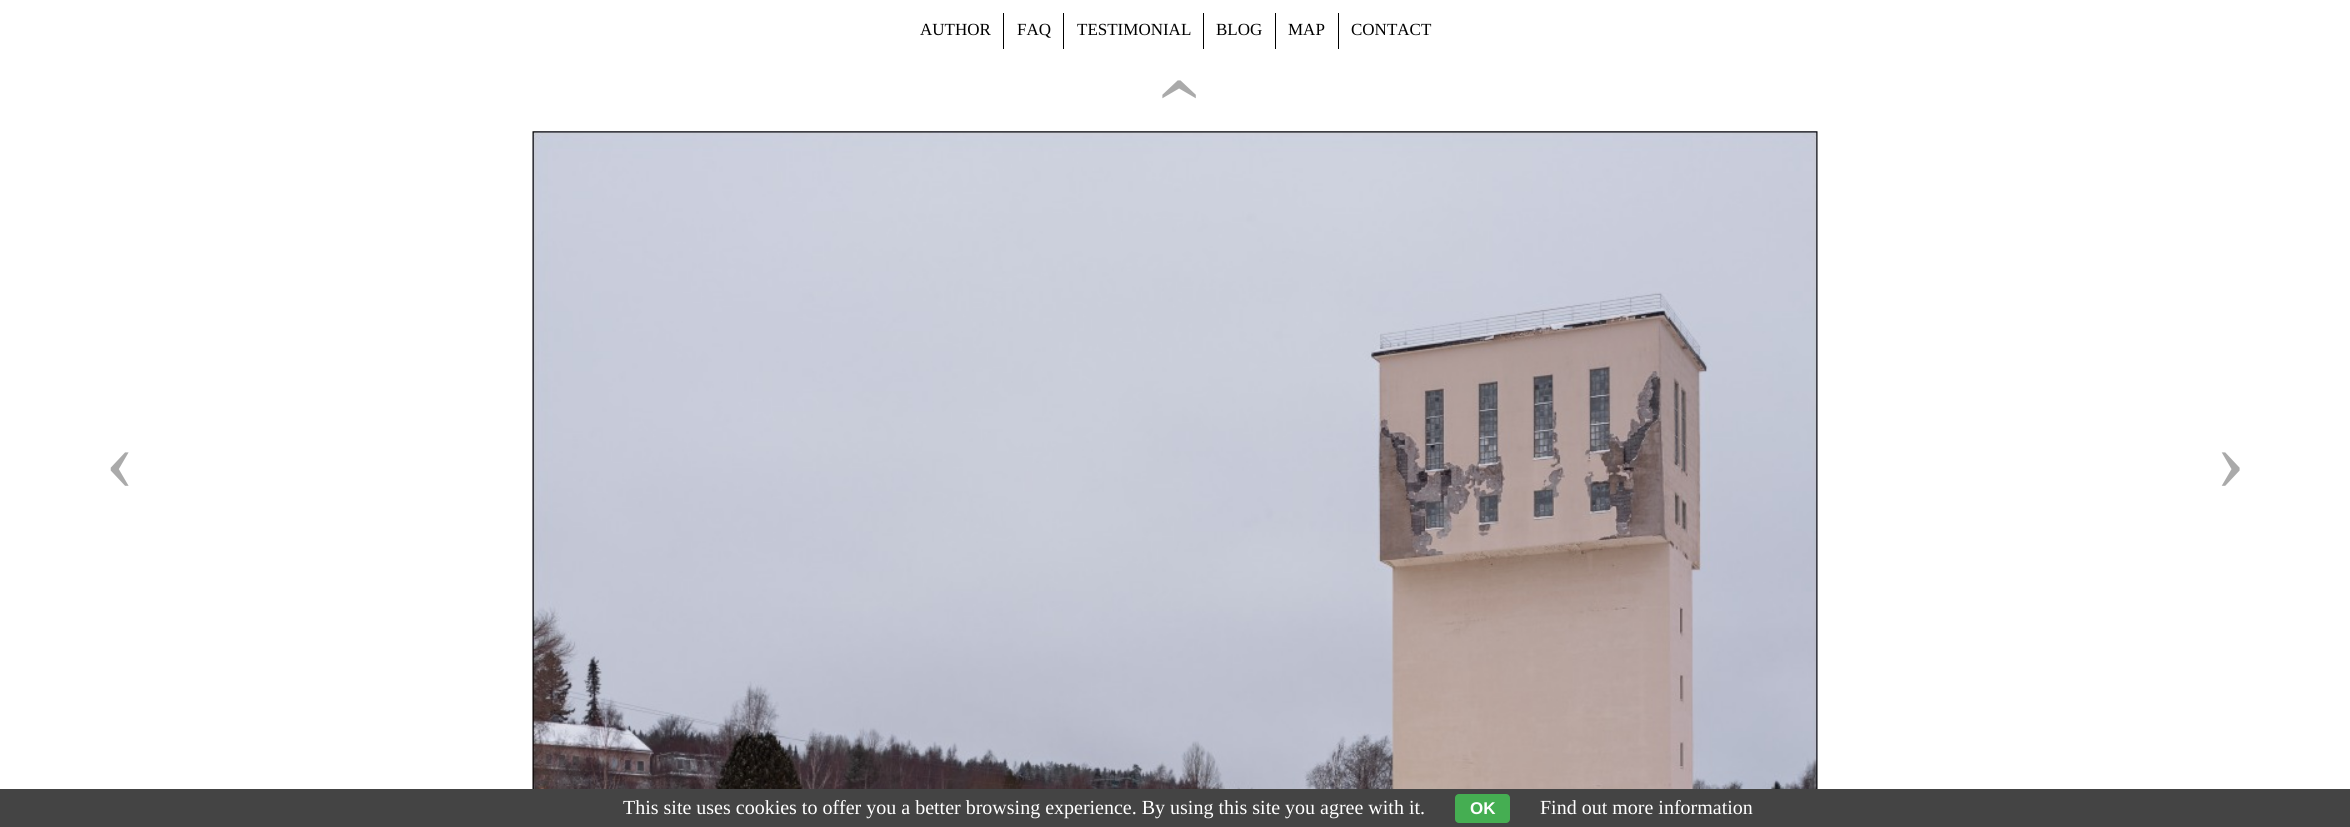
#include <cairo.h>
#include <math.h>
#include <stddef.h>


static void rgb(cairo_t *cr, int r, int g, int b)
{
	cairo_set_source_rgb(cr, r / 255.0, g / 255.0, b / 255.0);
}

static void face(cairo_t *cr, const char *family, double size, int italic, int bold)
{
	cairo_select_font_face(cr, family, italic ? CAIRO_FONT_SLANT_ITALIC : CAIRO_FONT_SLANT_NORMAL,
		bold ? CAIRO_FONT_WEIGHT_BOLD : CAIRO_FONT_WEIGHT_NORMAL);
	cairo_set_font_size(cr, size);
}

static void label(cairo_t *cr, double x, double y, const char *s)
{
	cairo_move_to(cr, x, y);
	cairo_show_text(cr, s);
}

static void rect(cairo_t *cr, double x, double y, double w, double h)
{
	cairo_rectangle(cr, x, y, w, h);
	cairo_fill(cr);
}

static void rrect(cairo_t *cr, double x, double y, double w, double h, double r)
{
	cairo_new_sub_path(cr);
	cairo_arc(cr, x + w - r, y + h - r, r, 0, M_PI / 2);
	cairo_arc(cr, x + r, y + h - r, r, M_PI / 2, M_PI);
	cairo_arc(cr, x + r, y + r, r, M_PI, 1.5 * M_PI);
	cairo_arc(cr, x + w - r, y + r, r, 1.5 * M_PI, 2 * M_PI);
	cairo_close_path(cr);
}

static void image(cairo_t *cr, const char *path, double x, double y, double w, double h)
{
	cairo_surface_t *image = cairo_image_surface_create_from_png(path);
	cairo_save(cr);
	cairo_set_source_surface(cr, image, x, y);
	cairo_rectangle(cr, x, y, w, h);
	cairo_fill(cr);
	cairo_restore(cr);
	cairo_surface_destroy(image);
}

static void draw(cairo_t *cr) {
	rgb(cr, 255, 255, 255);
	cairo_paint(cr);
	rgb(cr, 0, 0, 0);
	rect(cr, 1003, 13, 1, 36);
	face(cr, "Liberation Serif", 17, 0, 0);
	label(cr, 920, 35, "AUTHOR");
	rect(cr, 1063, 13, 1, 36);
	label(cr, 1017, 35, "FAQ");
	rect(cr, 1203, 13, 1, 36);
	label(cr, 1077, 35, "TESTIMONIAL");
	rect(cr, 1275, 13, 1, 36);
	label(cr, 1216, 35, "BLOG");
	rect(cr, 1338, 13, 1, 36);
	label(cr, 1288, 35, "MAP");
	label(cr, 1351, 35, "CONTACT");
	face(cr, "Liberation Serif", 88, 0, 0);
	rgb(cr, 170, 170, 170);
	cairo_save(cr);
	cairo_translate(cr, 1199, 104);
	cairo_rotate(cr, -90 * M_PI / 180);
	label(cr, 0, 0, "›");
	cairo_restore(cr);
	label(cr, 105, 489, "‹");
	label(cr, 2216, 489, "›");
	image(cr, "image0.png", 532, 131, 1286, 658);
	rgb(cr, 68, 68, 68);
	rect(cr, 0, 789, 2350, 38);
	face(cr, "Liberation Serif", 20, 0, 0);
	rgb(cr, 255, 255, 255);
	label(cr, 623, 814, "This site uses cookies to offer you a better browsing experience. By using this site you agree with it.");
	rgb(cr, 69, 174, 82);
	rrect(cr, 1455, 794, 55, 29, 4);
	cairo_fill(cr);
	face(cr, "Liberation Sans", 17, 0, 1);
	rgb(cr, 255, 255, 255);
	label(cr, 1470, 814, "OK");
	face(cr, "Liberation Serif", 20, 0, 0);
	label(cr, 1540, 814, "Find out more information");
}

int main(void) {
	cairo_surface_t *surface = cairo_image_surface_create(CAIRO_FORMAT_RGB24, 2350, 827);
	cairo_t *cr = cairo_create(surface);
	cairo_font_options_t *options = cairo_font_options_create();
	cairo_font_options_set_hint_metrics(options, CAIRO_HINT_METRICS_OFF);
	cairo_font_options_set_hint_style(options, CAIRO_HINT_STYLE_NONE);
	cairo_set_font_options(cr, options);
	cairo_set_miter_limit(cr, 4);
	draw(cr);
	cairo_surface_write_to_png(surface, "render.png");
	cairo_font_options_destroy(options);
	cairo_destroy(cr);
	cairo_surface_destroy(surface);
	return 0;
}
